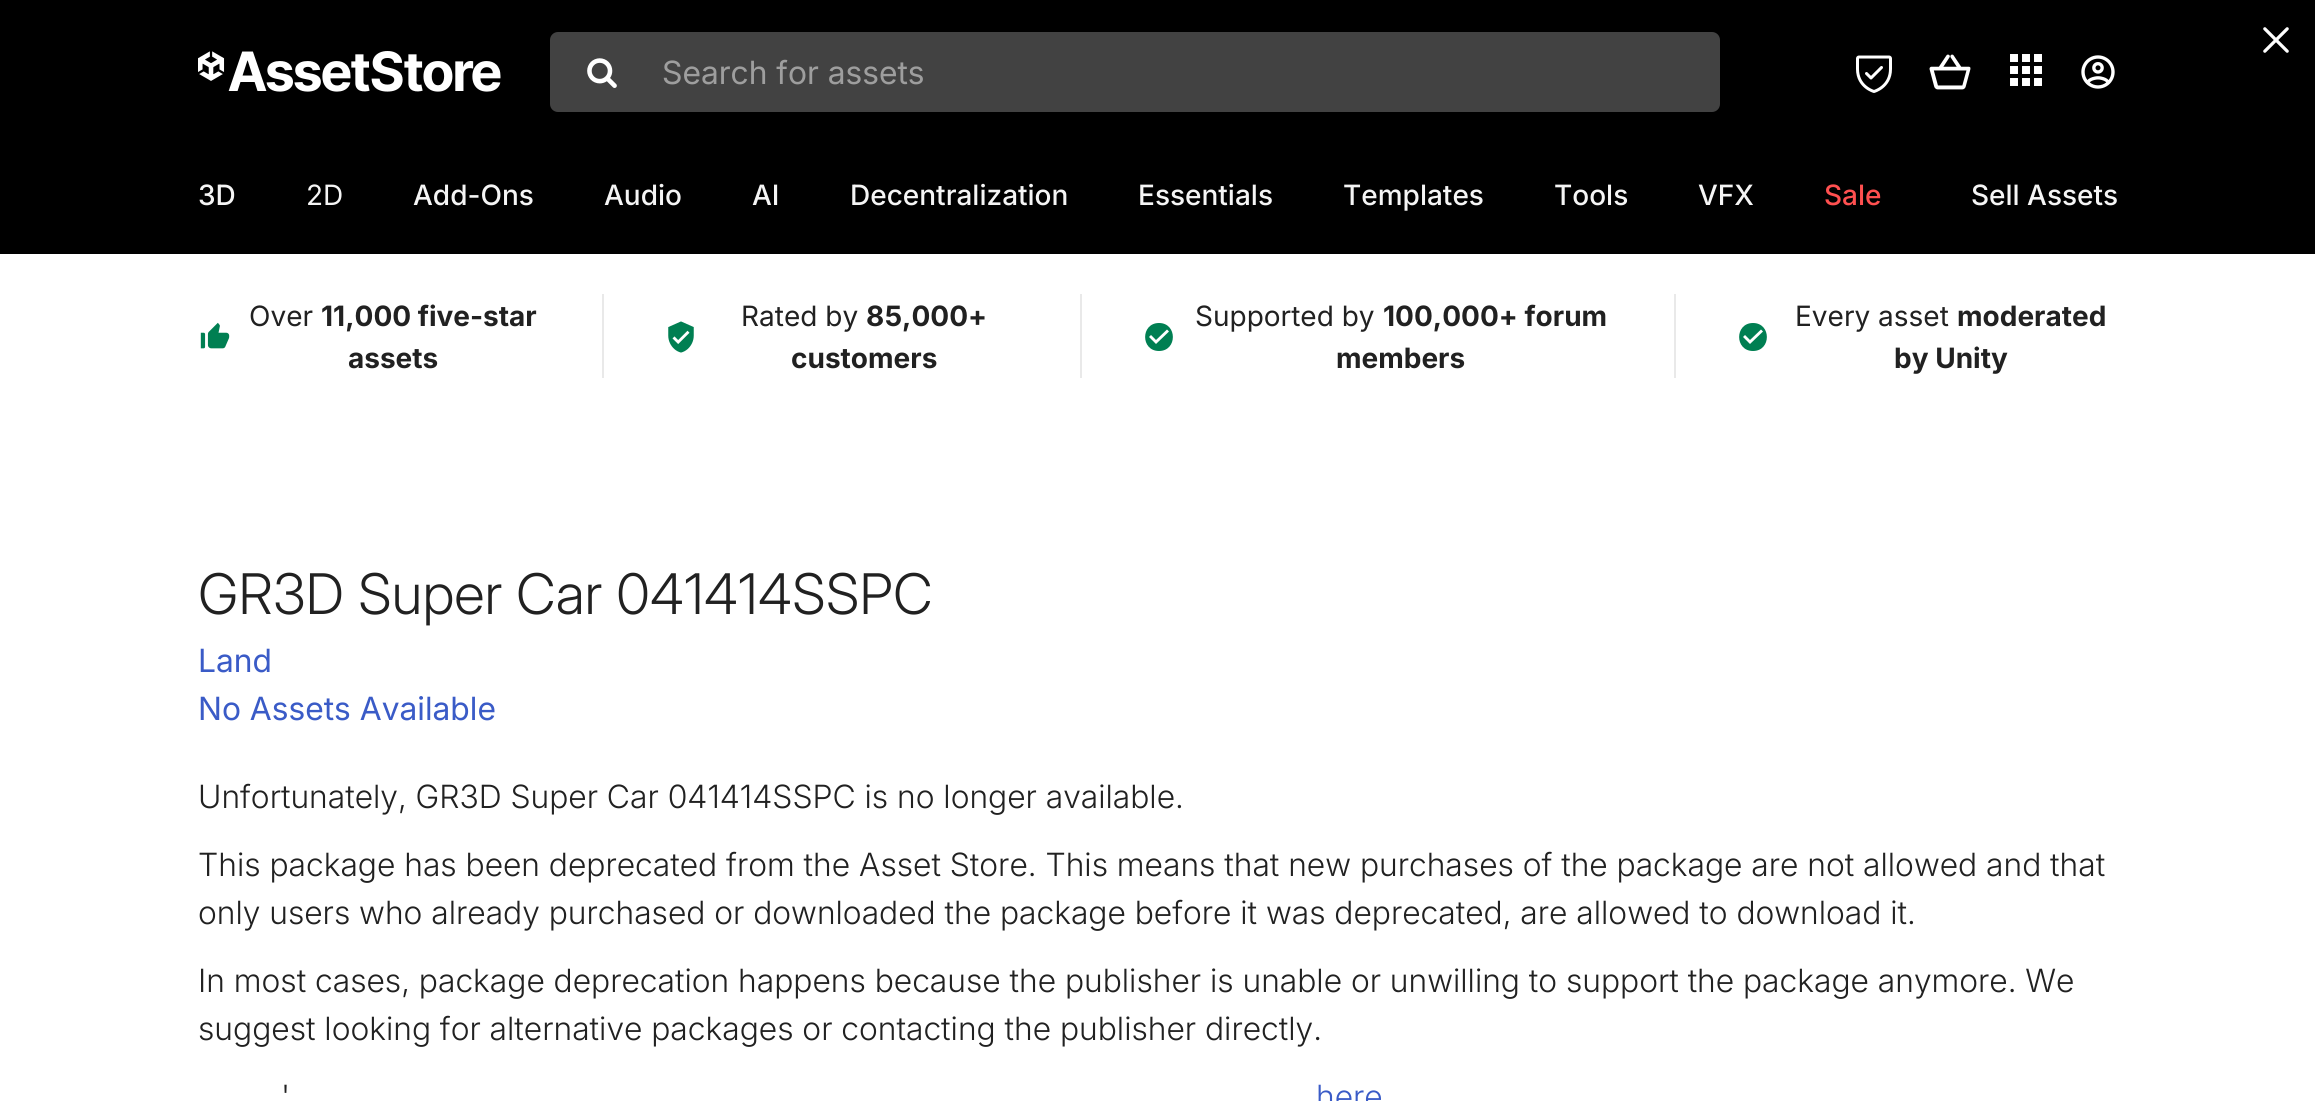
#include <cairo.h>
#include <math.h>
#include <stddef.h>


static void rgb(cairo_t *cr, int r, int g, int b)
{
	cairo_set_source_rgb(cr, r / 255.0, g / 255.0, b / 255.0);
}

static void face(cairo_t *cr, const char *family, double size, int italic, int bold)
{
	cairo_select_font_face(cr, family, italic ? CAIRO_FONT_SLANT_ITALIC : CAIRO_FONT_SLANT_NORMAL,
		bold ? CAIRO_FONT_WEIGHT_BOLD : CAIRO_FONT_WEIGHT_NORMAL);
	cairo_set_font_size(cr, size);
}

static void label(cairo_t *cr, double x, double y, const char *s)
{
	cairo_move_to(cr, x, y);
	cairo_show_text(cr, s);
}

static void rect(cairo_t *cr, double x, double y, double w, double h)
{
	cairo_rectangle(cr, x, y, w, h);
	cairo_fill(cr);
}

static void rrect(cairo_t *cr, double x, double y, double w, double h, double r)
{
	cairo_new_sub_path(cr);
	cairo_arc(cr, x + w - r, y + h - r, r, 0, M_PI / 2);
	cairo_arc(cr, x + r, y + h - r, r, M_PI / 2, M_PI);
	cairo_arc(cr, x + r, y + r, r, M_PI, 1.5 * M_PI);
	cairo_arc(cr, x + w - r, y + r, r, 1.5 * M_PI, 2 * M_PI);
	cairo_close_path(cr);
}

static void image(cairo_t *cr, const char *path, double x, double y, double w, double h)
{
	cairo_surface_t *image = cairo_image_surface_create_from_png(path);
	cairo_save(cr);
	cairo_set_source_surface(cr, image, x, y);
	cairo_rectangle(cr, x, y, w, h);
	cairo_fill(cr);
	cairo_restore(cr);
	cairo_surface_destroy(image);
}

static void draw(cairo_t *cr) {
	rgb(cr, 255, 255, 255);
	cairo_paint(cr);
	rgb(cr, 0, 0, 0);
	rect(cr, 0, 0, 2315, 254);
	image(cr, "image0.png", 2263, 27, 26, 26);
	image(cr, "image1.png", 198, 51, 303, 41);
	rgb(cr, 66, 66, 66);
	rrect(cr, 550, 32, 1170, 80, 8);
	cairo_fill(cr);
	image(cr, "image2.png", 587, 58, 30, 30);
	face(cr, "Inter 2", 32, 0, 0);
	rgb(cr, 158, 158, 158);
	label(cr, 662, 84, "Search for assets");
	image(cr, "image3.png", 1856, 55, 36, 38);
	image(cr, "image4.png", 1929, 54, 42, 36);
	image(cr, "image5.png", 2010, 54, 32, 32);
	image(cr, "image6.png", 2081, 55, 34, 34);
	face(cr, "Inter Medium", 28, 0, 0);
	rgb(cr, 245, 245, 245);
	label(cr, 198, 205, "3D");
	face(cr, "Inter", 28, 0, 0);
	label(cr, 306, 205, "2D");
	face(cr, "Inter Medium", 28, 0, 0);
	label(cr, 413, 205, "Add-Ons");
	label(cr, 604, 205, "Audio");
	label(cr, 752, 205, "AI");
	label(cr, 850, 205, "Decentralization");
	label(cr, 1138, 205, "Essentials");
	label(cr, 1343, 205, "Templates");
	label(cr, 1554, 205, "Tools");
	label(cr, 1698, 205, "VFX");
	rgb(cr, 255, 80, 80);
	label(cr, 1824, 205, "Sale");
	rgb(cr, 245, 245, 245);
	label(cr, 1971, 205, "Sell Assets");
	image(cr, "image7.png", 200, 322, 30, 27);
	face(cr, "Inter", 28, 0, 0);
	rgb(cr, 33, 33, 33);
	label(cr, 249, 326, "Over");
	face(cr, "Inter", 28, 0, 1);
	label(cr, 321, 326, "11,000 five-star");
	label(cr, 348, 368, "assets");
	rgb(cr, 233, 233, 233);
	rect(cr, 1080, 294, 2, 84);
	rect(cr, 602, 294, 2, 84);
	image(cr, "image8.png", 668, 321, 26, 32);
	face(cr, "Inter", 28, 0, 0);
	rgb(cr, 33, 33, 33);
	label(cr, 741, 326, "Rated by");
	face(cr, "Inter", 28, 0, 1);
	label(cr, 866, 326, "85,000+");
	label(cr, 791, 368, "customers");
	rgb(cr, 233, 233, 233);
	rect(cr, 1674, 294, 2, 84);
	rgb(cr, 0, 127, 82);
	cairo_new_path(cr);
	cairo_move_to(cr, 1159, 323);
	cairo_curve_to(cr, 1140.5, 323, 1140.5, 351, 1159, 351);
	cairo_curve_to(cr, 1177.5, 351, 1177.5, 323, 1159, 323);
	cairo_close_path(cr);
	cairo_move_to(cr, 1156, 344);
	cairo_line_to(cr, 1149, 337);
	cairo_line_to(cr, 1151, 335);
	cairo_line_to(cr, 1156, 340);
	cairo_line_to(cr, 1167, 329.5);
	cairo_line_to(cr, 1169, 331.5);
	cairo_close_path(cr);
	cairo_fill(cr);
	face(cr, "Inter", 28, 0, 0);
	rgb(cr, 33, 33, 33);
	label(cr, 1195, 326, "Supported by");
	face(cr, "Inter", 28, 0, 1);
	label(cr, 1383, 326, "100,000+ forum");
	label(cr, 1336, 368, "members");
	rgb(cr, 0, 127, 82);
	cairo_new_path(cr);
	cairo_move_to(cr, 1753, 323);
	cairo_curve_to(cr, 1734.5, 323, 1734.5, 351, 1753, 351);
	cairo_curve_to(cr, 1771.5, 351, 1771.5, 323, 1753, 323);
	cairo_close_path(cr);
	cairo_move_to(cr, 1750, 344);
	cairo_line_to(cr, 1743, 337);
	cairo_line_to(cr, 1745, 335);
	cairo_line_to(cr, 1750, 340);
	cairo_line_to(cr, 1761, 329.5);
	cairo_line_to(cr, 1763, 331.5);
	cairo_close_path(cr);
	cairo_fill(cr);
	face(cr, "Inter", 28, 0, 0);
	rgb(cr, 33, 33, 33);
	label(cr, 1795, 326, "Every asset");
	face(cr, "Inter", 28, 0, 1);
	label(cr, 1957, 326, "moderated");
	label(cr, 1894, 368, "by Unity");
	face(cr, "Inter Light", 56, 0, 0);
	label(cr, 198, 614, "GR3D Super Car 041414SSPC");
	face(cr, "Inter 2", 32, 0, 0);
	rgb(cr, 58, 91, 199);
	label(cr, 198, 672, "Land");
	label(cr, 198, 720, "No Assets Available");
	face(cr, "Inter 2 Light", 32, 0, 0);
	rgb(cr, 33, 33, 33);
	label(cr, 198, 808, "Unfortunately, GR3D Super Car 041414SSPC is no longer available.");
	label(cr, 198, 876, "This package has been deprecated from the Asset Store. This means that new purchases of the package are not allowed and that");
	label(cr, 198, 924, "only users who already purchased or downloaded the package before it was deprecated, are allowed to download it.");
	label(cr, 198, 992, "In most cases, package deprecation happens because the publisher is unable or unwilling to support the package anymore. We");
	label(cr, 198, 1040, "suggest looking for alternative packages or contacting the publisher directly.");
	label(cr, 281, 1108, "'");
	rgb(cr, 58, 91, 199);
	label(cr, 1316, 1108, "here");
}

int main(void) {
	cairo_surface_t *surface = cairo_image_surface_create(CAIRO_FORMAT_RGB24, 2315, 1101);
	cairo_t *cr = cairo_create(surface);
	cairo_font_options_t *options = cairo_font_options_create();
	cairo_font_options_set_hint_metrics(options, CAIRO_HINT_METRICS_OFF);
	cairo_font_options_set_hint_style(options, CAIRO_HINT_STYLE_NONE);
	cairo_set_font_options(cr, options);
	cairo_set_miter_limit(cr, 4);
	draw(cr);
	cairo_surface_write_to_png(surface, "render.png");
	cairo_font_options_destroy(options);
	cairo_destroy(cr);
	cairo_surface_destroy(surface);
	return 0;
}
